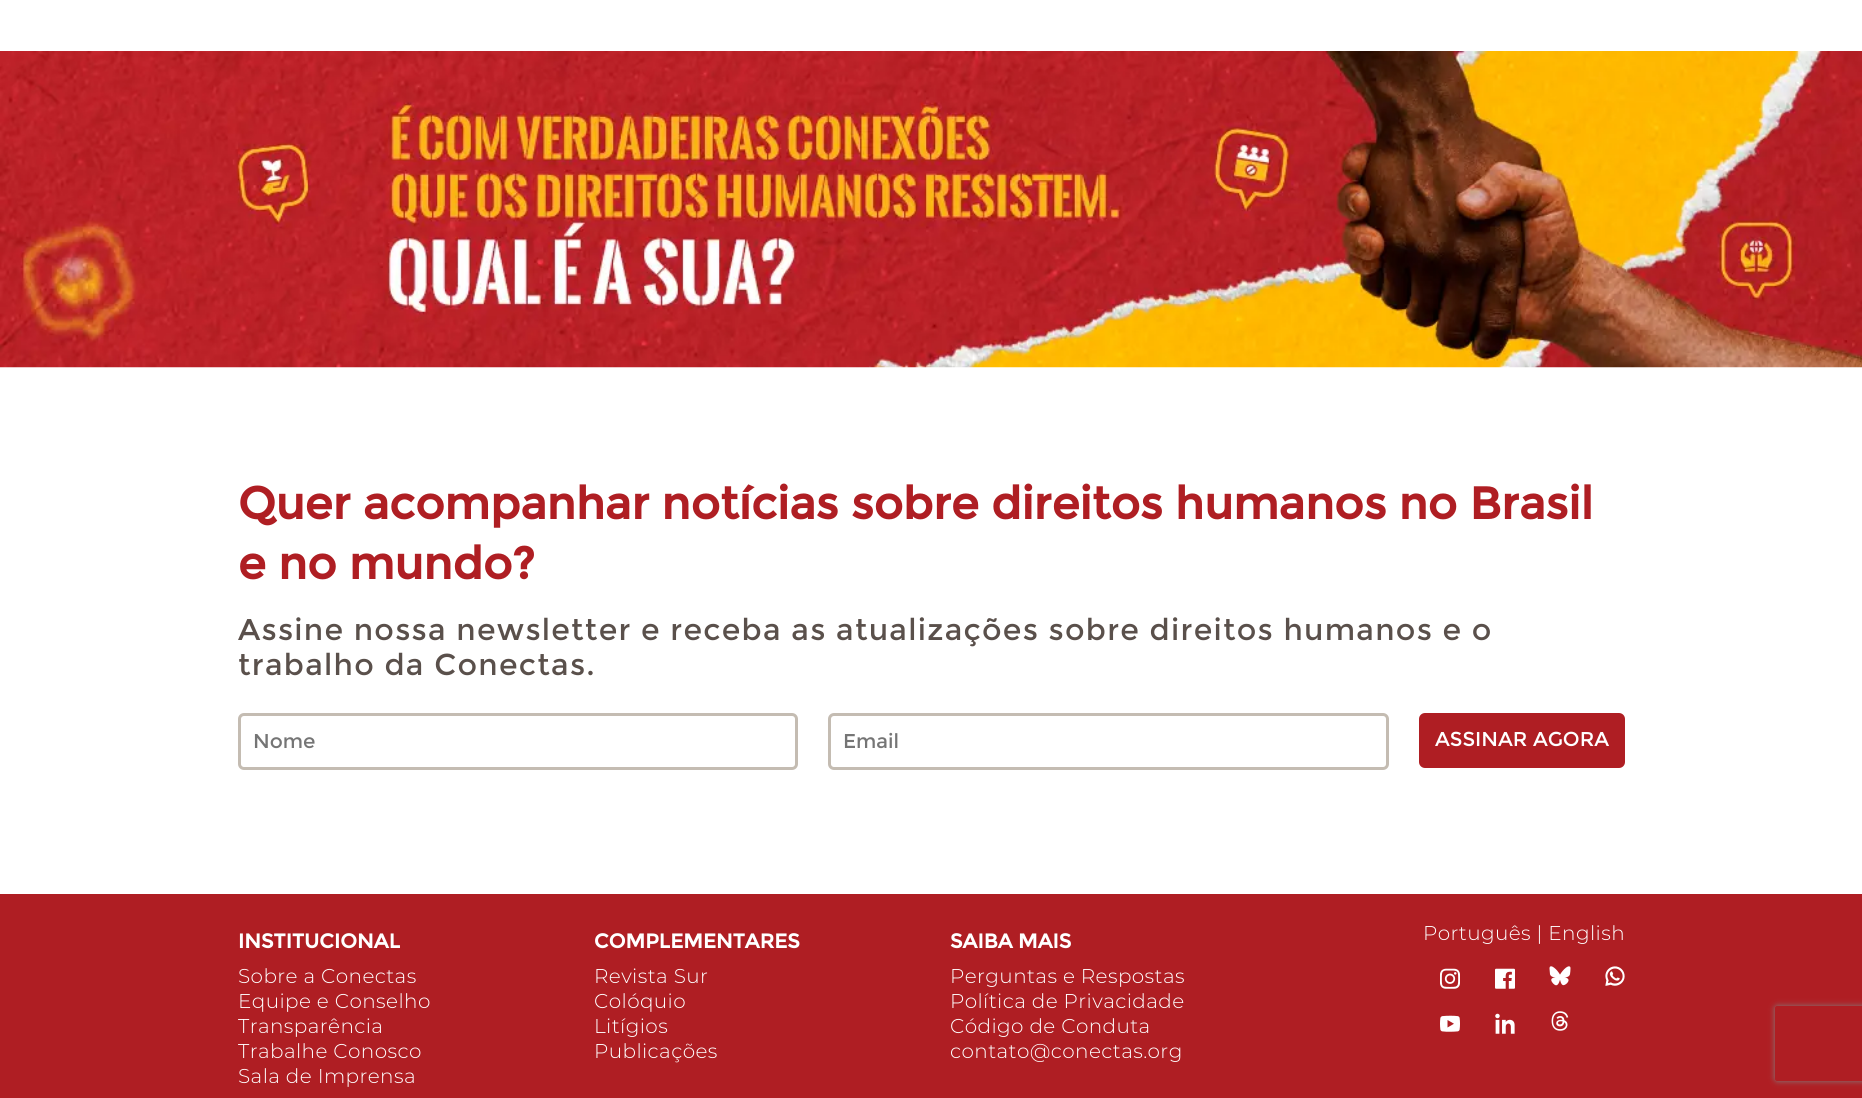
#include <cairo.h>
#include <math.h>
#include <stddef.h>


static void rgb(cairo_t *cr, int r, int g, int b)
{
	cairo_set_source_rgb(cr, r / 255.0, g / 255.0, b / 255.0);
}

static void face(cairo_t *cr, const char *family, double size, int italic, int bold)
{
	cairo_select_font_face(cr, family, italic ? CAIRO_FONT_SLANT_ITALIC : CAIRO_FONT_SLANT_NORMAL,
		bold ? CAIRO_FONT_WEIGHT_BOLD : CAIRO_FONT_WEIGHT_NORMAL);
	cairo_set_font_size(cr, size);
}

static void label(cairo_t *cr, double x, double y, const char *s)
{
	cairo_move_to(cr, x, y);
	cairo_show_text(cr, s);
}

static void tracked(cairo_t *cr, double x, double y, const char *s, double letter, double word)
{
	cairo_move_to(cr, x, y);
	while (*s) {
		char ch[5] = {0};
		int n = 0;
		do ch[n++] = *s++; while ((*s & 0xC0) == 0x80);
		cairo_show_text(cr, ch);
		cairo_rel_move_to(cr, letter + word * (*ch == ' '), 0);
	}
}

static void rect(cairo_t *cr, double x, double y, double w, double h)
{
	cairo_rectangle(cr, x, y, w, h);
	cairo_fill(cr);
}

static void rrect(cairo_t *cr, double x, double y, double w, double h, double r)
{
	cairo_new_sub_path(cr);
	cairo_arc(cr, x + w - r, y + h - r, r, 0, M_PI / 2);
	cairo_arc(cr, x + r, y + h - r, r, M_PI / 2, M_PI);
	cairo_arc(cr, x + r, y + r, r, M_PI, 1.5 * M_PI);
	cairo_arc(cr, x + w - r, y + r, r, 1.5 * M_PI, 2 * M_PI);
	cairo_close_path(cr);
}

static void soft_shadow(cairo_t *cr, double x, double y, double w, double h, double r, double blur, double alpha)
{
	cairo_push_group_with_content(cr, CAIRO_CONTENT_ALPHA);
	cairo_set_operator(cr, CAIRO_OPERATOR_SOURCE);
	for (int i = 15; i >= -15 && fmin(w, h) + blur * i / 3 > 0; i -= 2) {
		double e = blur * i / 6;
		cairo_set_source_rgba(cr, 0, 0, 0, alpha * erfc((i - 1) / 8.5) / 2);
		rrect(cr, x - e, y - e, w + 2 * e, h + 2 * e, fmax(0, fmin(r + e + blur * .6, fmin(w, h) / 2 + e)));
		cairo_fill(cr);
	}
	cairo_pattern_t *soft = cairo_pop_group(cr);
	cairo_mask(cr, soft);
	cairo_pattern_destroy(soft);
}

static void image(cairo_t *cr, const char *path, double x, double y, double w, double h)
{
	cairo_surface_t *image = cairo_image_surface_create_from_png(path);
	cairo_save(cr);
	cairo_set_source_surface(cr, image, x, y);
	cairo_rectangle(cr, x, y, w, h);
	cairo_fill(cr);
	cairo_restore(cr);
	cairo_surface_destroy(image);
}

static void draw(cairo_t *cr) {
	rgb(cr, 255, 255, 255);
	cairo_paint(cr);
	image(cr, "image0.png", 0, 51, 1862, 317);
	face(cr, "Montserrat", 45, 0, 1);
	rgb(cr, 175, 30, 35);
	label(cr, 238, 519, "Quer acompanhar notícias sobre direitos humanos no Brasil");
	label(cr, 238, 579, "e no mundo?");
	face(cr, "Montserrat", 30, 0, 0);
	rgb(cr, 90, 80, 75);
	tracked(cr, 238, 640, "Assine nossa newsletter e receba as atualizações sobre direitos humanos e o", 1.25, 0);
	tracked(cr, 238, 675, "trabalho da Conectas.", 1.25, 0);
	rrect(cr, 239.5, 714.5, 557, 54, 4.5);
	rgb(cr, 196, 188, 178);
	cairo_set_line_width(cr, 3);
	cairo_stroke(cr);
	face(cr, "Montserrat", 20, 0, 0);
	rgb(cr, 117, 117, 117);
	label(cr, 253, 748, "Nome");
	rrect(cr, 829.5, 714.5, 558, 54, 4.5);
	rgb(cr, 196, 188, 178);
	cairo_stroke(cr);
	rgb(cr, 117, 117, 117);
	label(cr, 843, 748, "Email");
	rgb(cr, 175, 30, 35);
	rrect(cr, 1419, 713, 206, 55, 6);
	cairo_fill(cr);
	rgb(cr, 255, 255, 255);
	label(cr, 1435, 746, "ASSINAR AGORA");
	rgb(cr, 175, 30, 35);
	rect(cr, 0, 894, 1862, 204);
	face(cr, "Montserrat", 20, 0, 1);
	rgb(cr, 255, 255, 255);
	label(cr, 238, 948, "INSTITUCIONAL");
	face(cr, "Montserrat Light", 20, 0, 0);
	tracked(cr, 238, 983, "Sobre a Conectas", 0.4, 0);
	tracked(cr, 238, 1008, "Equipe e Conselho", 0.4, 0);
	tracked(cr, 238, 1033, "Transparência", 0.4, 0);
	tracked(cr, 238, 1058, "Trabalhe Conosco", 0.4, 0);
	tracked(cr, 238, 1083, "Sala de Imprensa", 0.4, 0);
	face(cr, "Montserrat", 20, 0, 1);
	label(cr, 594, 948, "COMPLEMENTARES");
	face(cr, "Montserrat Light", 20, 0, 0);
	tracked(cr, 594, 983, "Revista Sur", 0.4, 0);
	tracked(cr, 594, 1008, "Colóquio", 0.4, 0);
	tracked(cr, 594, 1033, "Litígios", 0.4, 0);
	tracked(cr, 594, 1058, "Publicações", 0.4, 0);
	face(cr, "Montserrat", 20, 0, 1);
	label(cr, 950, 948, "SAIBA MAIS");
	face(cr, "Montserrat Light", 20, 0, 0);
	tracked(cr, 950, 983, "Perguntas e Respostas", 0.4, 0);
	tracked(cr, 950, 1008, "Política de Privacidade", 0.4, 0);
	tracked(cr, 950, 1033, "Código de Conduta", 0.4, 0);
	tracked(cr, 950, 1058, "contato@conectas.org", 0.4, 0);
	tracked(cr, 1423, 940, "Português | English", 0.4, 0);
	image(cr, "image1.png", 1440, 968, 20, 21);
	image(cr, "image2.png", 1495, 968, 20, 21);
	image(cr, "image3.png", 1549, 966, 22, 20);
	image(cr, "image4.png", 1605, 966, 20, 20);
	image(cr, "image5.png", 1440, 1015, 20, 17);
	image(cr, "image6.png", 1495, 1013, 20, 21);
	image(cr, "image7.png", 1551, 1011, 18, 20);
	cairo_save(cr);
	cairo_set_fill_rule(cr, CAIRO_FILL_RULE_EVEN_ODD);
	cairo_new_path(cr);
	cairo_move_to(cr, 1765, 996);
	cairo_line_to(cr, 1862, 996);
	cairo_line_to(cr, 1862, 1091);
	cairo_line_to(cr, 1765, 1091);
	cairo_close_path(cr);
	cairo_move_to(cr, 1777.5, 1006);
	cairo_line_to(cr, 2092.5, 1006);
	cairo_curve_to(cr, 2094, 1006, 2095, 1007, 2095, 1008.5);
	cairo_line_to(cr, 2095, 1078.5);
	cairo_curve_to(cr, 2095, 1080, 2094, 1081, 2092.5, 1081);
	cairo_line_to(cr, 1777.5, 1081);
	cairo_curve_to(cr, 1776, 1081, 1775, 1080, 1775, 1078.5);
	cairo_line_to(cr, 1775, 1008.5);
	cairo_curve_to(cr, 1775, 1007, 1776, 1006, 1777.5, 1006);
	cairo_close_path(cr);
	cairo_clip(cr);
	rgb(cr, 128, 128, 128);
	soft_shadow(cr, 1775, 1006, 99, 75, 2.5, 3, 1);
	cairo_restore(cr);
}

int main(void) {
	cairo_surface_t *surface = cairo_image_surface_create(CAIRO_FORMAT_RGB24, 1862, 1098);
	cairo_t *cr = cairo_create(surface);
	cairo_font_options_t *options = cairo_font_options_create();
	cairo_font_options_set_hint_metrics(options, CAIRO_HINT_METRICS_OFF);
	cairo_font_options_set_hint_style(options, CAIRO_HINT_STYLE_NONE);
	cairo_set_font_options(cr, options);
	cairo_set_miter_limit(cr, 4);
	draw(cr);
	cairo_surface_write_to_png(surface, "render.png");
	cairo_font_options_destroy(options);
	cairo_destroy(cr);
	cairo_surface_destroy(surface);
	return 0;
}
